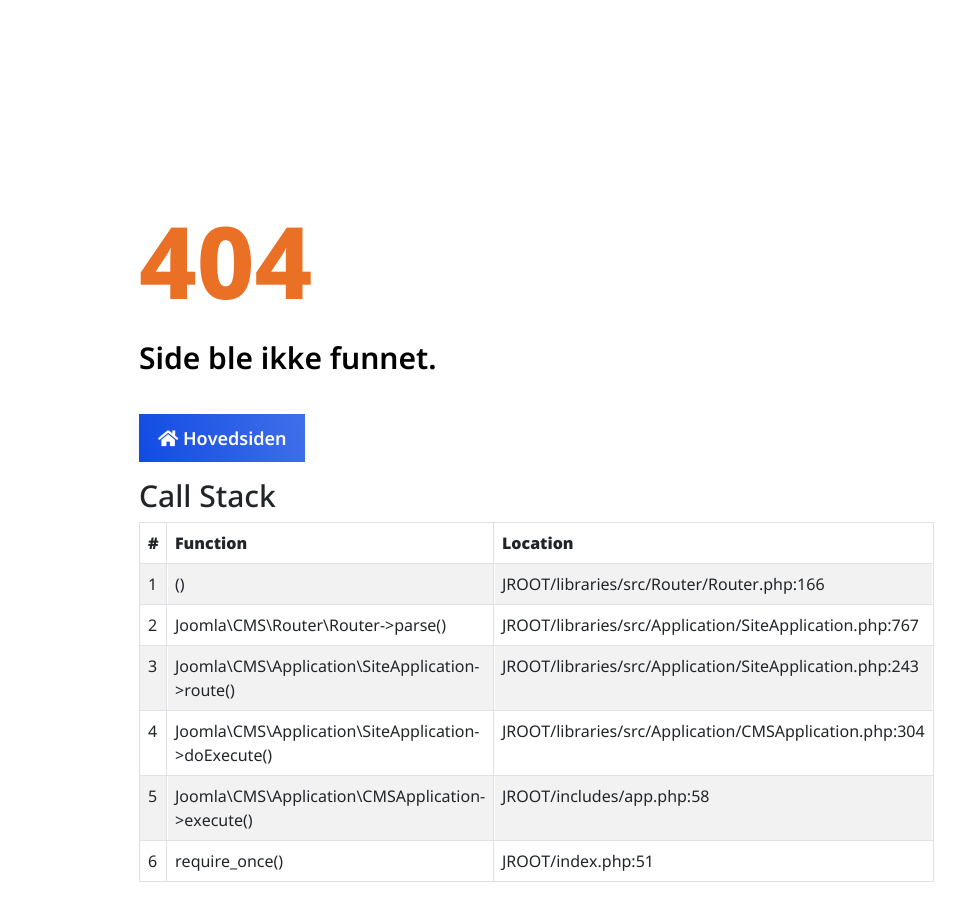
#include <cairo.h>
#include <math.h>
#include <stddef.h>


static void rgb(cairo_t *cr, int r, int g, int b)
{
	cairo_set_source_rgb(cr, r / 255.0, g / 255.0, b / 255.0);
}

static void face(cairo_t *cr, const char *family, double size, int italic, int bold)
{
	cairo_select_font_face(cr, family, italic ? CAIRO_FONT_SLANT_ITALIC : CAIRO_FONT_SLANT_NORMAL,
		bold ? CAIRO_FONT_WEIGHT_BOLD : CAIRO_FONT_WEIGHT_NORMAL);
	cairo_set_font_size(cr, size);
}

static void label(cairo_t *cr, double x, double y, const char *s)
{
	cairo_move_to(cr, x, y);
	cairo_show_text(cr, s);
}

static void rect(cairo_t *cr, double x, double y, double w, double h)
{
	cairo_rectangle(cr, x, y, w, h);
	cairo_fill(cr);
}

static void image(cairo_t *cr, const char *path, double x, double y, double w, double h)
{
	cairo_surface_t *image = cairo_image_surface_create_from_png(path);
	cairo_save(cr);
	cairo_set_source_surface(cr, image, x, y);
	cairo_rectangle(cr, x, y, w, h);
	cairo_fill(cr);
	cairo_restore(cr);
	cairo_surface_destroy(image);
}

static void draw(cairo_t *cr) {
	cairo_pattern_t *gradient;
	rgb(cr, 255, 255, 255);
	cairo_paint(cr);
	face(cr, "Noto Sans ExtraBold", 100, 0, 0);
	rgb(cr, 233, 112, 37);
	label(cr, 139, 299, "404");
	face(cr, "Noto Sans SemiBold", 30, 0, 0);
	rgb(cr, 0, 0, 0);
	label(cr, 139, 369, "Side ble ikke funnet.");
	gradient = cairo_pattern_create_linear(306, 416, 133, 461);
	cairo_pattern_add_color_stop_rgba(gradient, 0.04, 0.247, 0.431, 0.914, 1);
	cairo_pattern_add_color_stop_rgba(gradient, 1, 0.059, 0.29, 0.89, 1);
	cairo_set_source(cr, gradient);
	cairo_pattern_destroy(gradient);
	rect(cr, 139, 414, 166, 48);
	image(cr, "image0.png", 158, 430, 21, 17);
	face(cr, "Noto Sans SemiBold", 18, 0, 0);
	rgb(cr, 255, 255, 255);
	label(cr, 183, 445, "Hovedsiden");
	face(cr, "Noto Sans Medium", 30, 0, 0);
	rgb(cr, 33, 37, 41);
	label(cr, 139, 507, "Call Stack");
	rgb(cr, 222, 226, 230);
	rect(cr, 139, 522, 795, 1);
	face(cr, "Noto Sans Black", 16, 0, 0);
	rgb(cr, 33, 37, 41);
	label(cr, 148, 549, "#");
	label(cr, 175, 549, "Function");
	label(cr, 502, 549, "Location");
	rgb(cr, 222, 226, 230);
	rect(cr, 139, 563, 795, 1);
	rgb(cr, 242, 242, 242);
	rect(cr, 140, 564, 26, 40);
	face(cr, "Noto Sans", 16, 0, 0);
	rgb(cr, 33, 37, 41);
	label(cr, 148, 590, "1");
	rgb(cr, 242, 242, 242);
	rect(cr, 168, 564, 325, 40);
	rgb(cr, 33, 37, 41);
	label(cr, 175, 590, "()");
	rgb(cr, 242, 242, 242);
	rect(cr, 495, 564, 437, 40);
	rgb(cr, 33, 37, 41);
	label(cr, 502, 590, "JROOT/libraries/src/Router/Router.php:166");
	rgb(cr, 222, 226, 230);
	rect(cr, 139, 604, 795, 1);
	rgb(cr, 33, 37, 41);
	label(cr, 148, 631, "2");
	label(cr, 175, 631, "Joomla\\CMS\\Router\\Router->parse()");
	label(cr, 502, 631, "JROOT/libraries/src/Application/SiteApplication.php:767");
	rgb(cr, 222, 226, 230);
	rect(cr, 139, 645, 795, 1);
	rgb(cr, 242, 242, 242);
	rect(cr, 140, 646, 26, 64);
	rgb(cr, 33, 37, 41);
	label(cr, 148, 672, "3");
	rgb(cr, 242, 242, 242);
	rect(cr, 168, 646, 325, 64);
	rgb(cr, 33, 37, 41);
	label(cr, 175, 672, "Joomla\\CMS\\Application\\SiteApplication-");
	label(cr, 175, 696, ">route()");
	rgb(cr, 242, 242, 242);
	rect(cr, 495, 646, 437, 64);
	rgb(cr, 33, 37, 41);
	label(cr, 502, 672, "JROOT/libraries/src/Application/SiteApplication.php:243");
	rgb(cr, 222, 226, 230);
	rect(cr, 139, 710, 795, 1);
	rgb(cr, 33, 37, 41);
	label(cr, 148, 737, "4");
	label(cr, 175, 737, "Joomla\\CMS\\Application\\SiteApplication-");
	label(cr, 175, 761, ">doExecute()");
	label(cr, 502, 737, "JROOT/libraries/src/Application/CMSApplication.php:304");
	rgb(cr, 222, 226, 230);
	rect(cr, 139, 775, 795, 1);
	rgb(cr, 242, 242, 242);
	rect(cr, 140, 776, 26, 64);
	rgb(cr, 33, 37, 41);
	label(cr, 148, 802, "5");
	rgb(cr, 242, 242, 242);
	rect(cr, 168, 776, 325, 64);
	rgb(cr, 33, 37, 41);
	label(cr, 175, 802, "Joomla\\CMS\\Application\\CMSApplication-");
	label(cr, 175, 826, ">execute()");
	rgb(cr, 242, 242, 242);
	rect(cr, 495, 776, 437, 64);
	rgb(cr, 33, 37, 41);
	label(cr, 502, 802, "JROOT/includes/app.php:58");
	rgb(cr, 222, 226, 230);
	rect(cr, 139, 840, 795, 1);
	rect(cr, 139, 881, 795, 1);
	rect(cr, 139, 522, 1, 360);
	rgb(cr, 33, 37, 41);
	label(cr, 148, 867, "6");
	rgb(cr, 222, 226, 230);
	rect(cr, 166, 522, 1, 360);
	rgb(cr, 33, 37, 41);
	label(cr, 175, 867, "require_once()");
	rgb(cr, 222, 226, 230);
	rect(cr, 933, 522, 1, 360);
	rect(cr, 493, 522, 1, 360);
	rgb(cr, 33, 37, 41);
	label(cr, 502, 867, "JROOT/index.php:51");
}

int main(void) {
	cairo_surface_t *surface = cairo_image_surface_create(CAIRO_FORMAT_RGB24, 967, 903);
	cairo_t *cr = cairo_create(surface);
	cairo_font_options_t *options = cairo_font_options_create();
	cairo_font_options_set_hint_metrics(options, CAIRO_HINT_METRICS_OFF);
	cairo_font_options_set_hint_style(options, CAIRO_HINT_STYLE_NONE);
	cairo_set_font_options(cr, options);
	cairo_set_miter_limit(cr, 4);
	draw(cr);
	cairo_surface_write_to_png(surface, "render.png");
	cairo_font_options_destroy(options);
	cairo_destroy(cr);
	cairo_surface_destroy(surface);
	return 0;
}
